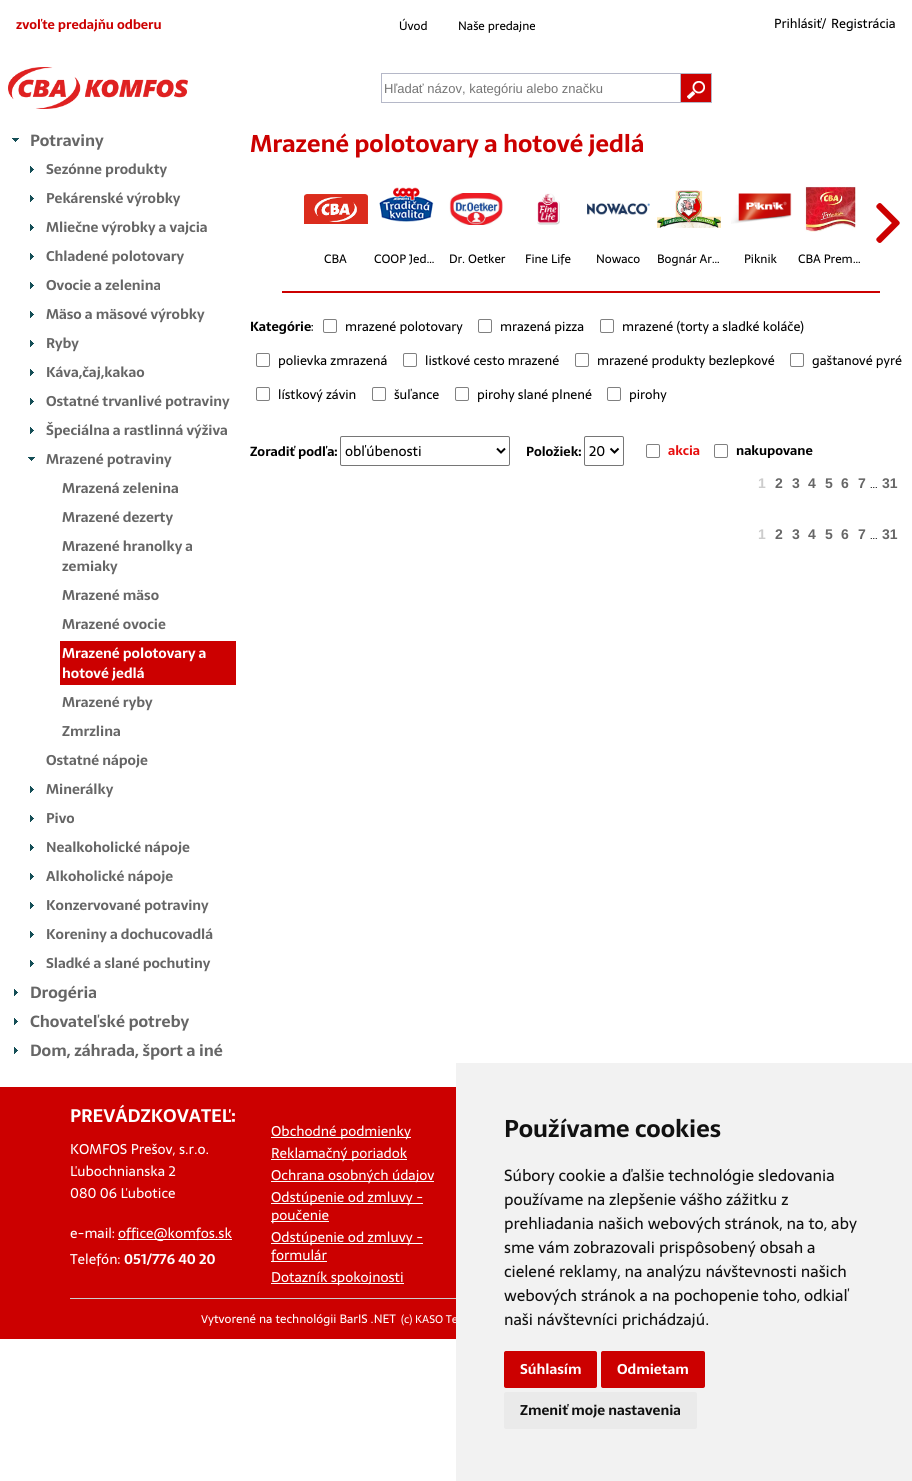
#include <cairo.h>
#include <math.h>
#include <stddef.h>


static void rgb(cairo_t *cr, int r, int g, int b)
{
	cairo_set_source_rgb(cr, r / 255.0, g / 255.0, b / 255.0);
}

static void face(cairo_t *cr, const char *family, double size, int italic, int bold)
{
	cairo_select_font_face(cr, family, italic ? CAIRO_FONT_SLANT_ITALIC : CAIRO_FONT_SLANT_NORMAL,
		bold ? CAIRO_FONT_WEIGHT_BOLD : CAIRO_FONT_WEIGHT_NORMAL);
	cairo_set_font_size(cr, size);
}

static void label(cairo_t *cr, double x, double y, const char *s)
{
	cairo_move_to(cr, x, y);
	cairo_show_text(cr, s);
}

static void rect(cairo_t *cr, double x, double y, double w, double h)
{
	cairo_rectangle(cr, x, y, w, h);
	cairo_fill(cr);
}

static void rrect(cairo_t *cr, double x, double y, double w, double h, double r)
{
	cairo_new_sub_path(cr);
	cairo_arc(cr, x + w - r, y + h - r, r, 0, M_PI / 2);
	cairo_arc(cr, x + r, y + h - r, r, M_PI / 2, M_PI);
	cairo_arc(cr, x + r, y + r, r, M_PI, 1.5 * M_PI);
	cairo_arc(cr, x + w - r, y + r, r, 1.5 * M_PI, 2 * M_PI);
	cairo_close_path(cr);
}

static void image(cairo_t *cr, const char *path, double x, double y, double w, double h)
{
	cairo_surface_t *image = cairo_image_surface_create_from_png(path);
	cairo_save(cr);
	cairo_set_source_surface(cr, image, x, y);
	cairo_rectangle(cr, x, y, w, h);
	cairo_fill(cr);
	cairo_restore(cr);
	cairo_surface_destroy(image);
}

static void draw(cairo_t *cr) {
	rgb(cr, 255, 255, 255);
	cairo_paint(cr);
	face(cr, "Sarala", 13, 0, 1);
	rgb(cr, 204, 0, 0);
	label(cr, 16, 29, "zvoľte predajňu odberu");
	face(cr, "Sarala", 12, 0, 0);
	rgb(cr, 0, 0, 0);
	label(cr, 399, 30, "Úvod");
	label(cr, 458, 30, "Naše predajne");
	face(cr, "Sarala", 13, 0, 0);
	label(cr, 774, 28, "Prihlásiť/");
	label(cr, 831, 28, "Registrácia");
	image(cr, "image0.png", 8, 67, 180, 42);
	cairo_rectangle(cr, 381.5, 73.5, 299, 29);
	rgb(cr, 181, 184, 200);
	cairo_set_line_width(cr, 1);
	cairo_stroke(cr);
	face(cr, "Liberation Sans", 13, 0, 0);
	rgb(cr, 117, 117, 117);
	label(cr, 384, 93, "Hľadať názov, kategóriu alebo značku");
	rgb(cr, 204, 0, 0);
	rect(cr, 681, 74, 30, 28);
	rgb(cr, 181, 184, 200);
	rect(cr, 681, 73, 31, 1);
	rect(cr, 711, 73, 1, 30);
	rect(cr, 681, 102, 31, 1);
	image(cr, "image1.png", 687, 81, 18, 18);
	image(cr, "image2.png", 12, 138, 7, 4);
	face(cr, "Sarala", 16, 0, 1);
	rgb(cr, 102, 102, 102);
	label(cr, 30, 146, "Potraviny");
	image(cr, "image3.png", 30, 166, 4, 7);
	face(cr, "Sarala", 14, 0, 1);
	label(cr, 46, 174, "Sezónne produkty");
	image(cr, "image3.png", 30, 195, 4, 7);
	label(cr, 46, 203, "Pekárenské výrobky");
	image(cr, "image3.png", 30, 224, 4, 7);
	label(cr, 46, 232, "Mliečne výrobky a vajcia");
	image(cr, "image3.png", 30, 253, 4, 7);
	label(cr, 46, 261, "Chladené polotovary");
	image(cr, "image3.png", 30, 282, 4, 7);
	label(cr, 46, 290, "Ovocie a zelenina");
	image(cr, "image3.png", 30, 311, 4, 7);
	label(cr, 46, 319, "Mäso a mäsové výrobky");
	image(cr, "image3.png", 30, 340, 4, 7);
	label(cr, 46, 348, "Ryby");
	image(cr, "image3.png", 30, 369, 4, 7);
	label(cr, 46, 377, "Káva,čaj,kakao");
	image(cr, "image3.png", 30, 398, 4, 7);
	label(cr, 46, 406, "Ostatné trvanlivé potraviny");
	image(cr, "image3.png", 30, 427, 4, 7);
	label(cr, 46, 435, "Špeciálna a rastlinná výživa");
	image(cr, "image2.png", 28, 457, 7, 4);
	label(cr, 46, 464, "Mrazené potraviny");
	label(cr, 62, 493, "Mrazená zelenina");
	label(cr, 62, 522, "Mrazené dezerty");
	label(cr, 62, 551, "Mrazené hranolky a");
	label(cr, 62, 571, "zemiaky");
	label(cr, 62, 600, "Mrazené mäso");
	label(cr, 62, 629, "Mrazené ovocie");
	rgb(cr, 204, 0, 0);
	rect(cr, 60, 641, 176, 44);
	rgb(cr, 255, 255, 255);
	label(cr, 62, 658, "Mrazené polotovary a");
	label(cr, 62, 678, "hotové jedlá");
	rgb(cr, 102, 102, 102);
	label(cr, 62, 707, "Mrazené ryby");
	label(cr, 62, 736, "Zmrzlina");
	label(cr, 46, 765, "Ostatné nápoje");
	image(cr, "image3.png", 30, 786, 4, 7);
	label(cr, 46, 794, "Minerálky");
	image(cr, "image3.png", 30, 815, 4, 7);
	label(cr, 46, 823, "Pivo");
	image(cr, "image3.png", 30, 844, 4, 7);
	label(cr, 46, 852, "Nealkoholické nápoje");
	image(cr, "image3.png", 30, 873, 4, 7);
	label(cr, 46, 881, "Alkoholické nápoje");
	image(cr, "image3.png", 30, 902, 4, 7);
	label(cr, 46, 910, "Konzervované potraviny");
	image(cr, "image3.png", 30, 931, 4, 7);
	label(cr, 46, 939, "Koreniny a dochucovadlá");
	image(cr, "image3.png", 30, 960, 4, 7);
	label(cr, 46, 968, "Sladké a slané pochutiny");
	image(cr, "image3.png", 14, 989, 4, 7);
	face(cr, "Sarala", 16, 0, 1);
	label(cr, 30, 998, "Drogéria");
	image(cr, "image3.png", 14, 1018, 4, 7);
	label(cr, 30, 1027, "Chovateľské potreby");
	image(cr, "image3.png", 14, 1047, 4, 7);
	label(cr, 30, 1056, "Dom, záhrada, šport a iné");
	face(cr, "Sarala", 24, 0, 1);
	rgb(cr, 204, 0, 0);
	label(cr, 250, 152, "Mrazené polotovary a hotové jedlá");
	image(cr, "image4.png", 876, 203, 24, 40);
	image(cr, "image5.png", 304, 194, 64, 30);
	face(cr, "Sarala", 12, 0, 0);
	rgb(cr, 0, 0, 0);
	label(cr, 324, 263, "CBA");
	image(cr, "image6.png", 379, 187, 55, 35);
	label(cr, 374, 263, "COOP Jed…");
	image(cr, "image7.png", 449, 193, 54, 32);
	label(cr, 449, 263, "Dr. Oetker");
	image(cr, "image8.png", 537, 193, 23, 32);
	label(cr, 525, 263, "Fine Life");
	image(cr, "image9.png", 587, 203, 63, 12);
	label(cr, 596, 263, "Nowaco");
	image(cr, "image10.png", 657, 190, 64, 38);
	label(cr, 657, 263, "Bognár Ar…");
	image(cr, "image11.png", 731, 193, 61, 31);
	label(cr, 744, 263, "Piknik");
	image(cr, "image12.png", 804, 186, 52, 46);
	label(cr, 798, 263, "CBA Prem…");
	rgb(cr, 204, 0, 0);
	rect(cr, 282, 291, 598, 2);
	face(cr, "Sarala", 13, 0, 1);
	rgb(cr, 0, 0, 0);
	label(cr, 250, 331, "Kategórie");
	face(cr, "Sarala", 13, 0, 0);
	label(cr, 311, 331, ":");
	rrect(cr, 323.5, 319.5, 13, 13, 1.5);
	rgb(cr, 128, 128, 128);
	cairo_stroke(cr);
	rgb(cr, 0, 0, 0);
	label(cr, 345, 331, "mrazené polotovary");
	rrect(cr, 478.5, 319.5, 13, 13, 1.5);
	rgb(cr, 128, 128, 128);
	cairo_stroke(cr);
	rgb(cr, 0, 0, 0);
	label(cr, 500, 331, "mrazená pizza");
	rrect(cr, 600.5, 319.5, 13, 13, 1.5);
	rgb(cr, 128, 128, 128);
	cairo_stroke(cr);
	rgb(cr, 0, 0, 0);
	label(cr, 622, 331, "mrazené (torty a sladké koláče)");
	rrect(cr, 256.5, 353.5, 13, 13, 1.5);
	rgb(cr, 128, 128, 128);
	cairo_stroke(cr);
	rgb(cr, 0, 0, 0);
	label(cr, 278, 365, "polievka zmrazená");
	rrect(cr, 403.5, 353.5, 13, 13, 1.5);
	rgb(cr, 128, 128, 128);
	cairo_stroke(cr);
	rgb(cr, 0, 0, 0);
	label(cr, 425, 365, "listkové cesto mrazené");
	rrect(cr, 575.5, 353.5, 13, 13, 1.5);
	rgb(cr, 128, 128, 128);
	cairo_stroke(cr);
	rgb(cr, 0, 0, 0);
	label(cr, 597, 365, "mrazené produkty bezlepkové");
	rrect(cr, 790.5, 353.5, 13, 13, 1.5);
	rgb(cr, 128, 128, 128);
	cairo_stroke(cr);
	rgb(cr, 0, 0, 0);
	label(cr, 812, 365, "gaštanové pyré");
	rrect(cr, 256.5, 387.5, 13, 13, 1.5);
	rgb(cr, 128, 128, 128);
	cairo_stroke(cr);
	rgb(cr, 0, 0, 0);
	label(cr, 278, 399, "lístkový závin");
	rrect(cr, 372.5, 387.5, 13, 13, 1.5);
	rgb(cr, 128, 128, 128);
	cairo_stroke(cr);
	rgb(cr, 0, 0, 0);
	label(cr, 394, 399, "šuľance");
	rrect(cr, 455.5, 387.5, 13, 13, 1.5);
	rgb(cr, 128, 128, 128);
	cairo_stroke(cr);
	rgb(cr, 0, 0, 0);
	label(cr, 477, 399, "pirohy slané plnené");
	rrect(cr, 607.5, 387.5, 13, 13, 1.5);
	rgb(cr, 128, 128, 128);
	cairo_stroke(cr);
	rgb(cr, 0, 0, 0);
	label(cr, 629, 399, "pirohy");
	face(cr, "Sarala", 13, 0, 1);
	label(cr, 250, 456, "Zoradiť podľa:");
	rrect(cr, 340.5, 436.5, 169, 29, 1.5);
	rgb(cr, 118, 118, 118);
	cairo_stroke(cr);
	cairo_new_path(cr);
	cairo_move_to(cr, 497, 448.5);
	cairo_line_to(cr, 501, 452.5);
	cairo_line_to(cr, 505, 448.5);
	rgb(cr, 0, 0, 0);
	cairo_set_line_width(cr, 2);
	cairo_stroke(cr);
	face(cr, "Sarala", 14, 0, 0);
	label(cr, 345, 456, "obľúbenosti");
	face(cr, "Sarala", 13, 0, 1);
	label(cr, 526, 456, "Položiek:");
	rrect(cr, 584.5, 436.5, 39, 29, 1.5);
	rgb(cr, 118, 118, 118);
	cairo_set_line_width(cr, 1);
	cairo_stroke(cr);
	cairo_new_path(cr);
	cairo_move_to(cr, 610.5, 448.5);
	cairo_line_to(cr, 614.5, 452.5);
	cairo_line_to(cr, 618.5, 448.5);
	rgb(cr, 0, 0, 0);
	cairo_set_line_width(cr, 2);
	cairo_stroke(cr);
	face(cr, "Sarala", 14, 0, 0);
	label(cr, 589, 456, "20");
	rrect(cr, 646.5, 444.5, 13, 13, 1.5);
	rgb(cr, 128, 128, 128);
	cairo_set_line_width(cr, 1);
	cairo_stroke(cr);
	face(cr, "Sarala", 13, 0, 1);
	rgb(cr, 231, 14, 14);
	label(cr, 668, 455, "akcia");
	rrect(cr, 714.5, 444.5, 13, 13, 1.5);
	rgb(cr, 128, 128, 128);
	cairo_stroke(cr);
	rgb(cr, 0, 0, 0);
	label(cr, 736, 455, "nakupovane");
	face(cr, "Liberation Sans", 14, 0, 1);
	rgb(cr, 204, 204, 204);
	label(cr, 758, 488, "1");
	rgb(cr, 102, 102, 102);
	label(cr, 775, 488, "2");
	label(cr, 792, 488, "3");
	label(cr, 808, 488, "4");
	label(cr, 825, 488, "5");
	label(cr, 841, 488, "6");
	label(cr, 858, 488, "7");
	face(cr, "Sarala", 10, 0, 0);
	rgb(cr, 0, 0, 0);
	label(cr, 870, 488, "...");
	face(cr, "Liberation Sans", 14, 0, 1);
	rgb(cr, 102, 102, 102);
	label(cr, 882, 488, "31");
	rgb(cr, 204, 204, 204);
	label(cr, 758, 539, "1");
	rgb(cr, 102, 102, 102);
	label(cr, 775, 539, "2");
	label(cr, 792, 539, "3");
	label(cr, 808, 539, "4");
	label(cr, 825, 539, "5");
	label(cr, 841, 539, "6");
	label(cr, 858, 539, "7");
	face(cr, "Sarala", 10, 0, 0);
	rgb(cr, 0, 0, 0);
	label(cr, 870, 539, "...");
	face(cr, "Liberation Sans", 14, 0, 1);
	rgb(cr, 102, 102, 102);
	label(cr, 882, 539, "31");
	rgb(cr, 204, 0, 0);
	rect(cr, 0, 1087, 456, 252);
	face(cr, "Sarala", 18, 0, 1);
	rgb(cr, 255, 255, 255);
	label(cr, 70, 1122, "PREVÁDZKOVATEĽ:");
	face(cr, "Sarala", 14, 0, 0);
	label(cr, 70, 1154, "KOMFOS Prešov, s.r.o.");
	label(cr, 70, 1176, "Ľubochnianska 2");
	label(cr, 70, 1198, "080 06 Ľubotice");
	label(cr, 70, 1238, "e-mail:");
	rect(cr, 118, 1239, 114, 1);
	label(cr, 118, 1238, "office@komfos.sk");
	label(cr, 70, 1264, "Telefón:");
	face(cr, "Sarala", 14, 0, 1);
	label(cr, 124, 1264, "051/776 40 20");
	rect(cr, 271, 1137, 140, 1);
	face(cr, "Sarala", 14, 0, 0);
	label(cr, 271, 1136, "Obchodné podmienky");
	rect(cr, 271, 1159, 136, 1);
	label(cr, 271, 1158, "Reklamačný poriadok");
	rect(cr, 271, 1181, 163, 1);
	label(cr, 271, 1180, "Ochrana osobných údajov");
	rect(cr, 271, 1203, 152, 1);
	label(cr, 271, 1202, "Odstúpenie od zmluvy -");
	rect(cr, 271, 1221, 58, 1);
	label(cr, 271, 1220, "poučenie");
	rect(cr, 271, 1243, 152, 1);
	label(cr, 271, 1242, "Odstúpenie od zmluvy -");
	rect(cr, 271, 1261, 56, 1);
	label(cr, 271, 1260, "formulár");
	rect(cr, 271, 1283, 133, 1);
	label(cr, 271, 1282, "Dotazník spokojnosti");
	rgb(cr, 204, 204, 204);
	rect(cr, 70, 1298, 386, 1);
	face(cr, "Sarala", 11, 0, 0);
	rgb(cr, 255, 255, 255);
	label(cr, 201, 1323, "V");
	face(cr, "Sarala", 12, 0, 0);
	label(cr, 208, 1323, "ytvorené na technológii BarIS .NET");
	face(cr, "Sarala", 11, 0, 0);
	label(cr, 401, 1323, "(c) KASO Te");
	rgb(cr, 242, 242, 242);
	rect(cr, 456, 1063, 456, 418);
	face(cr, "Sarala", 24, 0, 1);
	rgb(cr, 17, 17, 17);
	label(cr, 504, 1137, "Používame cookies");
	face(cr, "Sarala", 16, 0, 0);
	label(cr, 504, 1181, "Súbory cookie a ďalšie technológie sledovania");
	label(cr, 504, 1205, "používame na zlepšenie vášho zážitku z");
	label(cr, 504, 1229, "prehliadania našich webových stránok, na to, aby");
	label(cr, 504, 1253, "sme vám zobrazovali prispôsobený obsah a");
	label(cr, 504, 1277, "cielené reklamy, na analýzu návštevnosti našich");
	label(cr, 504, 1301, "webových stránok a na pochopenie toho, odkiaľ");
	label(cr, 504, 1325, "naši návštevníci prichádzajú.");
	rgb(cr, 204, 0, 0);
	rrect(cr, 504, 1351, 93, 37, 2);
	cairo_fill(cr);
	face(cr, "Sarala", 14, 0, 1);
	rgb(cr, 255, 255, 255);
	label(cr, 520, 1374, "Súhlasím");
	rgb(cr, 204, 0, 0);
	rrect(cr, 601, 1351, 104, 37, 2);
	cairo_fill(cr);
	rgb(cr, 255, 255, 255);
	label(cr, 617, 1374, "Odmietam");
	rgb(cr, 234, 234, 234);
	rrect(cr, 504, 1392, 193, 37, 2);
	cairo_fill(cr);
	rgb(cr, 17, 17, 17);
	label(cr, 520, 1415, "Zmeniť moje nastavenia");
}

int main(void) {
	cairo_surface_t *surface = cairo_image_surface_create(CAIRO_FORMAT_RGB24, 912, 1481);
	cairo_t *cr = cairo_create(surface);
	cairo_font_options_t *options = cairo_font_options_create();
	cairo_font_options_set_hint_metrics(options, CAIRO_HINT_METRICS_OFF);
	cairo_font_options_set_hint_style(options, CAIRO_HINT_STYLE_NONE);
	cairo_set_font_options(cr, options);
	cairo_set_miter_limit(cr, 4);
	draw(cr);
	cairo_surface_write_to_png(surface, "render.png");
	cairo_font_options_destroy(options);
	cairo_destroy(cr);
	cairo_surface_destroy(surface);
	return 0;
}
